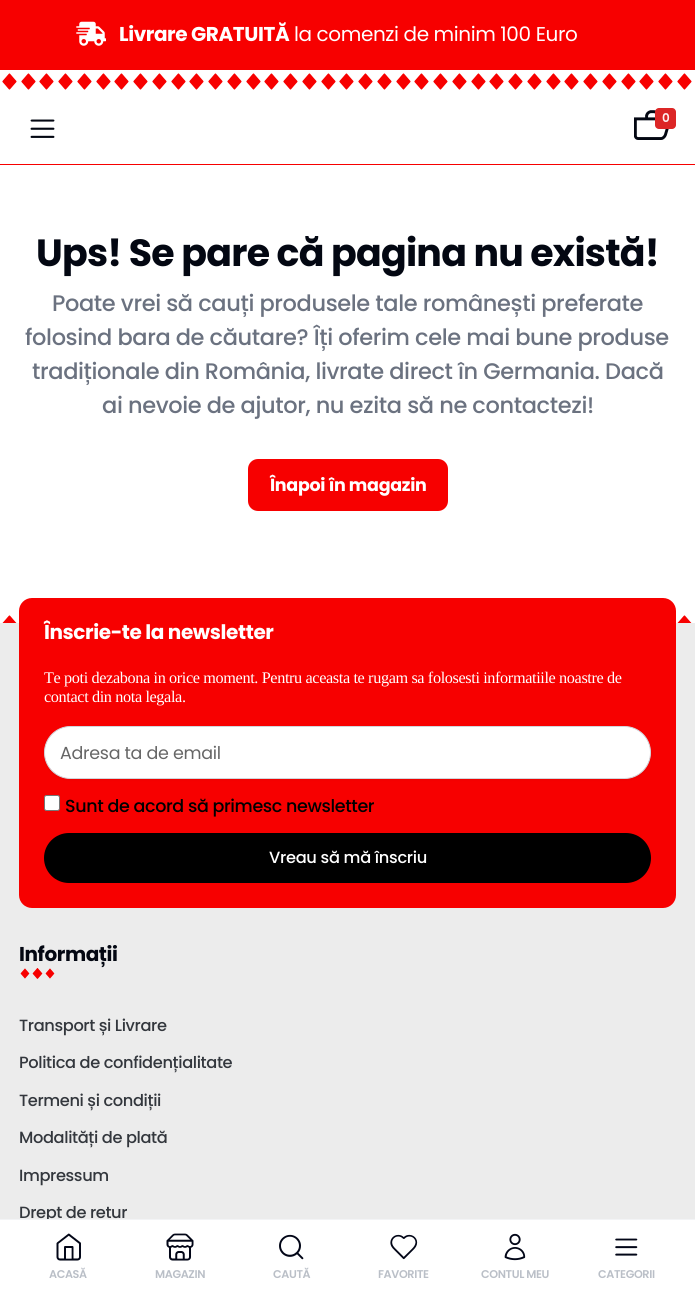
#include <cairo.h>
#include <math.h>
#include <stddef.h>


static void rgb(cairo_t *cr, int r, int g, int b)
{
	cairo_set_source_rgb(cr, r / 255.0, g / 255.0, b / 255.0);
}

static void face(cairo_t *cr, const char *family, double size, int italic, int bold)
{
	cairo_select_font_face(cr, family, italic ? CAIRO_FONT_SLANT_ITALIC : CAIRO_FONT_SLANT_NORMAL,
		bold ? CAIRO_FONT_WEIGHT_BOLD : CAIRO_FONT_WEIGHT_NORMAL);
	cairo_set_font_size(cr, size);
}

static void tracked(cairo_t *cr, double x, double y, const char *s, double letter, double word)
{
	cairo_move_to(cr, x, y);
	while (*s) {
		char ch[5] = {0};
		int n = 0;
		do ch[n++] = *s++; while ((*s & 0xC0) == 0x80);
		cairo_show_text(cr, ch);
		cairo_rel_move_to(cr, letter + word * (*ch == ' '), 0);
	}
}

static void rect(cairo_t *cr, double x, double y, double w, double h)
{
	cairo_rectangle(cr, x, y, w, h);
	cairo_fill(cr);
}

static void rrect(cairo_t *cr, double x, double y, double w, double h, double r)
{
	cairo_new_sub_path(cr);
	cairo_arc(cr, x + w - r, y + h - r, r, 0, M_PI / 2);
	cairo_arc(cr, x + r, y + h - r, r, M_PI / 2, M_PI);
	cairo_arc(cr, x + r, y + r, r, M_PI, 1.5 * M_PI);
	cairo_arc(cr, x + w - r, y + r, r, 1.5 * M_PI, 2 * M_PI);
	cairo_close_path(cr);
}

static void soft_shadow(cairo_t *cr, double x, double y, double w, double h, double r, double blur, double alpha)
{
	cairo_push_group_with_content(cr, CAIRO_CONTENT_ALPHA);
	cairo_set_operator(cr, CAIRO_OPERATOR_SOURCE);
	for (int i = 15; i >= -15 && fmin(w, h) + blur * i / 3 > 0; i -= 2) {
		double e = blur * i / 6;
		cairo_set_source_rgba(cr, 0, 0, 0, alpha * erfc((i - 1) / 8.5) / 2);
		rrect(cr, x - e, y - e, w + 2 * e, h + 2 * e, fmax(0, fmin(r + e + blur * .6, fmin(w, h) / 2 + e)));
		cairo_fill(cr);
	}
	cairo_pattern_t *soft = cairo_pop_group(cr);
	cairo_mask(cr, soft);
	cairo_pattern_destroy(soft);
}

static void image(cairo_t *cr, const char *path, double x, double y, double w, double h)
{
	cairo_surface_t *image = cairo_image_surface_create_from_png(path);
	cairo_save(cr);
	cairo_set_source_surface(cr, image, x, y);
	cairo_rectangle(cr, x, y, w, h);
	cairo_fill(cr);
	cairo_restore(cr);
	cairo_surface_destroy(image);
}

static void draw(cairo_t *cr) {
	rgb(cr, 255, 255, 255);
	cairo_paint(cr);
	rgb(cr, 247, 0, 0);
	rect(cr, 0, 0, 695, 70);
	image(cr, "image0.png", 76, 21, 30, 25);
	face(cr, "Poppins", 20, 0, 1);
	rgb(cr, 255, 255, 255);
	tracked(cr, 119, 41, "Livrare GRATUITĂ", -0.4, 0);
	face(cr, "Poppins", 20, 0, 0);
	tracked(cr, 294, 41, "la comenzi de minim 100 Euro", -0.4, 0);
	image(cr, "image1.png", 2, 73, 690, 17);
	rgb(cr, 247, 0, 0);
	rect(cr, 0, 164, 695, 1);
	image(cr, "image2.png", 634, 110, 35, 30);
	rgb(cr, 220, 38, 38);
	rrect(cr, 655, 108, 21, 21, 4);
	cairo_fill(cr);
	face(cr, "Poppins SemiBold", 12, 0, 0);
	rgb(cr, 254, 242, 242);
	tracked(cr, 662, 122, "0", -0.38, 0);
	image(cr, "image3.png", 30, 119, 25, 19);
	face(cr, "Poppins", 37.9, 0, 1);
	rgb(cr, 3, 7, 18);
	tracked(cr, 36, 266, "Ups! Se pare că pagina nu există!", -0.75, 0);
	face(cr, "Poppins Medium", 22.5, 0, 0);
	rgb(cr, 107, 114, 128);
	tracked(cr, 52, 311, "Poate vrei să cauți produsele tale românești preferate", -0.38, 0);
	tracked(cr, 25, 345, "folosind bara de căutare? Îți oferim cele mai bune produse", -0.38, 0);
	tracked(cr, 32, 379, "tradiționale din România, livrate direct în Germania. Dacă", -0.38, 0);
	tracked(cr, 102, 413, "ai nevoie de ajutor, nu ezita să ne contactezi!", -0.38, 0);
	rgb(cr, 247, 0, 0);
	rrect(cr, 248, 459, 200, 52, 10);
	cairo_fill(cr);
	face(cr, "Poppins", 17.5, 0, 1);
	rgb(cr, 255, 255, 255);
	tracked(cr, 270, 491, "Înapoi în magazin", -0.3, 0);
	image(cr, "image4.png", 2, 615, 690, 8);
	rgb(cr, 236, 236, 236);
	rect(cr, 0, 623, 695, 596);
	rgb(cr, 247, 0, 0);
	rrect(cr, 19, 598, 657, 310, 13);
	cairo_fill(cr);
	face(cr, "Poppins", 20, 0, 1);
	rgb(cr, 255, 255, 255);
	tracked(cr, 44, 639, "Înscrie-te la newsletter", -0.4, 0);
	face(cr, "Liberation Serif", 16.25, 0, 0);
	tracked(cr, 44, 683, "Te poti dezabona in orice moment. Pentru aceasta te rugam sa folosesti informatiile noastre de", -0.38, 0);
	tracked(cr, 44, 702, "contact din nota legala.", -0.38, 0);
	rgb(cr, 0, 0, 0);
	soft_shadow(cr, 44, 728, 607, 52, 26, 1, 0.05);
	rgb(cr, 255, 255, 255);
	rrect(cr, 44.5, 726.5, 606, 52, 26);
	cairo_fill_preserve(cr);
	rgb(cr, 209, 213, 219);
	cairo_set_line_width(cr, 1);
	cairo_stroke(cr);
	face(cr, "Poppins", 17.5, 0, 0);
	rgb(cr, 102, 102, 102);
	tracked(cr, 60, 759, "Adresa ta de email", -0.3, 0);
	rgb(cr, 255, 255, 255);
	rrect(cr, 44.5, 795.5, 15, 15, 2);
	cairo_fill_preserve(cr);
	rgb(cr, 118, 118, 118);
	cairo_stroke(cr);
	face(cr, "Poppins Medium", 17.5, 0, 0);
	rgb(cr, 0, 0, 0);
	tracked(cr, 65, 812, "Sunt de acord să primesc newsletter", -0.38, 0);
	rrect(cr, 44, 833, 607, 50, 25);
	cairo_fill(cr);
	face(cr, "Poppins Medium", 16.25, 0, 0);
	rgb(cr, 255, 255, 255);
	tracked(cr, 269, 863, "Vreau să mă înscriu", -0.3, 0);
	face(cr, "Poppins", 20, 0, 1);
	rgb(cr, 3, 7, 18);
	tracked(cr, 19, 961, "Informații", -0.4, 0);
	image(cr, "image5.png", 20, 968, 35, 11);
	face(cr, "Poppins Medium", 16.25, 0, 0);
	rgb(cr, 51, 55, 61);
	tracked(cr, 19, 1031, "Transport și Livrare", -0.38, 0);
	tracked(cr, 19, 1068, "Politica de confidențialitate", -0.38, 0);
	tracked(cr, 19, 1106, "Termeni și condiții", -0.38, 0);
	tracked(cr, 19, 1143, "Modalități de plată", -0.38, 0);
	tracked(cr, 19, 1181, "Impressum", -0.38, 0);
	tracked(cr, 19, 1218, "Drept de retur", -0.38, 0);
	rgb(cr, 255, 255, 255);
	rect(cr, 46, 1220, 3, 3);
	rgb(cr, 243, 244, 246);
	rect(cr, 0, 1219, 695, 1);
	image(cr, "image6.png", 56, 1233, 25, 28);
	face(cr, "Poppins SemiBold", 11.25, 0, 0);
	rgb(cr, 186, 191, 199);
	tracked(cr, 49, 1278, "ACASĂ", -0.38, 0);
	image(cr, "image7.png", 166, 1233, 28, 28);
	tracked(cr, 155, 1278, "MAGAZIN", -0.38, 0);
	image(cr, "image8.png", 279, 1234, 25, 26);
	tracked(cr, 273, 1278, "CAUTĂ", -0.38, 0);
	image(cr, "image9.png", 390, 1234, 28, 26);
	tracked(cr, 378, 1278, "FAVORITE", -0.38, 0);
	image(cr, "image10.png", 504, 1233, 22, 28);
	tracked(cr, 481, 1278, "CONTUL MEU", -0.38, 0);
	image(cr, "image11.png", 615, 1238, 23, 18);
	tracked(cr, 598, 1278, "CATEGORII", -0.38, 0);
}

int main(void) {
	cairo_surface_t *surface = cairo_image_surface_create(CAIRO_FORMAT_RGB24, 695, 1290);
	cairo_t *cr = cairo_create(surface);
	cairo_font_options_t *options = cairo_font_options_create();
	cairo_font_options_set_hint_metrics(options, CAIRO_HINT_METRICS_OFF);
	cairo_font_options_set_hint_style(options, CAIRO_HINT_STYLE_NONE);
	cairo_set_font_options(cr, options);
	cairo_set_miter_limit(cr, 4);
	draw(cr);
	cairo_surface_write_to_png(surface, "render.png");
	cairo_font_options_destroy(options);
	cairo_destroy(cr);
	cairo_surface_destroy(surface);
	return 0;
}
